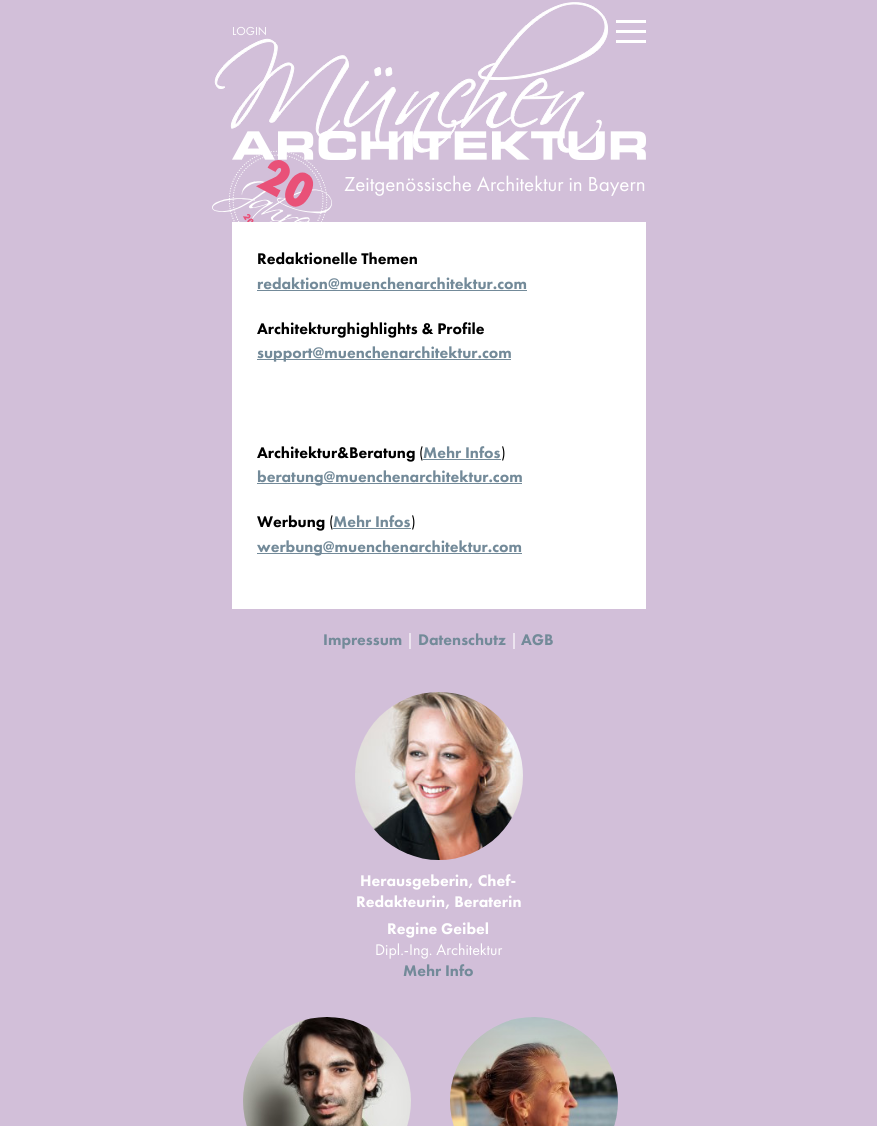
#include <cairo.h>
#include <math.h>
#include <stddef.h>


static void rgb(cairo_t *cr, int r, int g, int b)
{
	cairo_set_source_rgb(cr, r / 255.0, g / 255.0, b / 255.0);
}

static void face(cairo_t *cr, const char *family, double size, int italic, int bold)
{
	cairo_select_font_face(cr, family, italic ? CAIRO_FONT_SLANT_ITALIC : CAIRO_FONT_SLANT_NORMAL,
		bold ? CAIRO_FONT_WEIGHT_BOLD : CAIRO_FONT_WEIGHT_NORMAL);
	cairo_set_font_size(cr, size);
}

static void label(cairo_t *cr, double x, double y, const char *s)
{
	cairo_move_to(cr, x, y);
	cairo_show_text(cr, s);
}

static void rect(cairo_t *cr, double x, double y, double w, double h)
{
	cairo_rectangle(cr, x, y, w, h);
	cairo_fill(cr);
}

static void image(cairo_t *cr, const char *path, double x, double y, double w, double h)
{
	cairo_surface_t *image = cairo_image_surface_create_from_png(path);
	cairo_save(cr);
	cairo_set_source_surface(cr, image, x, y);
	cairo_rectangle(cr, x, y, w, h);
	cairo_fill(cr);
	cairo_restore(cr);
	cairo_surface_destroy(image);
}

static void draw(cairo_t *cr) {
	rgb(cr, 210, 191, 217);
	cairo_paint(cr);
	image(cr, "image0.png", 214, 2, 432, 158);
	face(cr, "Futura PT", 12, 0, 0);
	rgb(cr, 255, 255, 255);
	label(cr, 232, 35, "LOGIN");
	rect(cr, 616, 20, 30, 3);
	rect(cr, 616, 30, 30, 3);
	rect(cr, 616, 40, 30, 3);
	image(cr, "image1.png", 212, 150, 120, 72);
	face(cr, "Futura PT", 21, 0, 0);
	label(cr, 344, 191, "Zeitgenössische Architektur in Bayern");
	rect(cr, 232, 222, 414, 387);
	face(cr, "Futura PT Black", 16, 0, 0);
	rgb(cr, 0, 0, 0);
	label(cr, 257, 264, "Redaktionelle Themen");
	rgb(cr, 115, 138, 153);
	label(cr, 257, 289, "redaktion@muenchenarchitektur.com");
	rect(cr, 257, 290, 270, 1);
	rgb(cr, 0, 0, 0);
	label(cr, 257, 334, "Architekturghighlights & Profile");
	rgb(cr, 115, 138, 153);
	rect(cr, 257, 359, 254, 1);
	label(cr, 257, 358, "support@muenchenarchitektur.com");
	rgb(cr, 0, 0, 0);
	label(cr, 257, 458, "Architektur&Beratung");
	face(cr, "Futura PT", 16, 0, 0);
	label(cr, 419, 458, "(");
	face(cr, "Futura PT Black", 16, 0, 0);
	rgb(cr, 115, 138, 153);
	label(cr, 423, 458, "Mehr Infos");
	rect(cr, 423, 459, 78, 1);
	face(cr, "Futura PT", 16, 0, 0);
	rgb(cr, 0, 0, 0);
	label(cr, 501, 458, ")");
	rgb(cr, 115, 138, 153);
	rect(cr, 257, 483, 265, 1);
	face(cr, "Futura PT Black", 16, 0, 0);
	label(cr, 257, 482, "beratung@muenchenarchitektur.com");
	rgb(cr, 0, 0, 0);
	label(cr, 257, 527, "Werbung");
	face(cr, "Futura PT", 16, 0, 0);
	label(cr, 329, 527, "(");
	face(cr, "Futura PT Black", 16, 0, 0);
	rgb(cr, 115, 138, 153);
	label(cr, 333, 527, "Mehr Infos");
	rect(cr, 333, 528, 78, 1);
	face(cr, "Futura PT", 16, 0, 0);
	rgb(cr, 0, 0, 0);
	label(cr, 411, 527, ")");
	rgb(cr, 115, 138, 153);
	rect(cr, 257, 553, 265, 1);
	face(cr, "Futura PT Black", 16, 0, 0);
	label(cr, 257, 552, "werbung@muenchenarchitektur.com");
	label(cr, 323, 645, "Impressum");
	face(cr, "Futura PT", 16, 0, 0);
	rgb(cr, 255, 255, 255);
	label(cr, 406, 645, "|");
	face(cr, "Futura PT Black", 16, 0, 0);
	rgb(cr, 115, 138, 153);
	label(cr, 418, 645, "Datenschutz");
	face(cr, "Futura PT", 16, 0, 0);
	rgb(cr, 255, 255, 255);
	label(cr, 510, 645, "|");
	face(cr, "Futura PT Black", 16, 0, 0);
	rgb(cr, 115, 138, 153);
	label(cr, 521, 645, "AGB");
	image(cr, "image2.png", 355, 692, 168, 168);
	rgb(cr, 255, 255, 255);
	label(cr, 360, 886, "Herausgeberin, Chef-");
	label(cr, 356, 907, "Redakteurin, Beraterin");
	label(cr, 387, 934, "Regine Geibel");
	face(cr, "Futura PT", 16, 0, 0);
	label(cr, 375, 955, "Dipl.-Ing. Architektur");
	face(cr, "Futura PT Black", 16, 0, 0);
	rgb(cr, 115, 138, 153);
	label(cr, 403, 976, "Mehr Info");
	image(cr, "image3.png", 243, 1017, 168, 109);
	image(cr, "image4.png", 450, 1017, 168, 109);
}

int main(void) {
	cairo_surface_t *surface = cairo_image_surface_create(CAIRO_FORMAT_RGB24, 877, 1126);
	cairo_t *cr = cairo_create(surface);
	cairo_font_options_t *options = cairo_font_options_create();
	cairo_font_options_set_hint_metrics(options, CAIRO_HINT_METRICS_OFF);
	cairo_font_options_set_hint_style(options, CAIRO_HINT_STYLE_NONE);
	cairo_set_font_options(cr, options);
	cairo_set_miter_limit(cr, 4);
	draw(cr);
	cairo_surface_write_to_png(surface, "render.png");
	cairo_font_options_destroy(options);
	cairo_destroy(cr);
	cairo_surface_destroy(surface);
	return 0;
}
